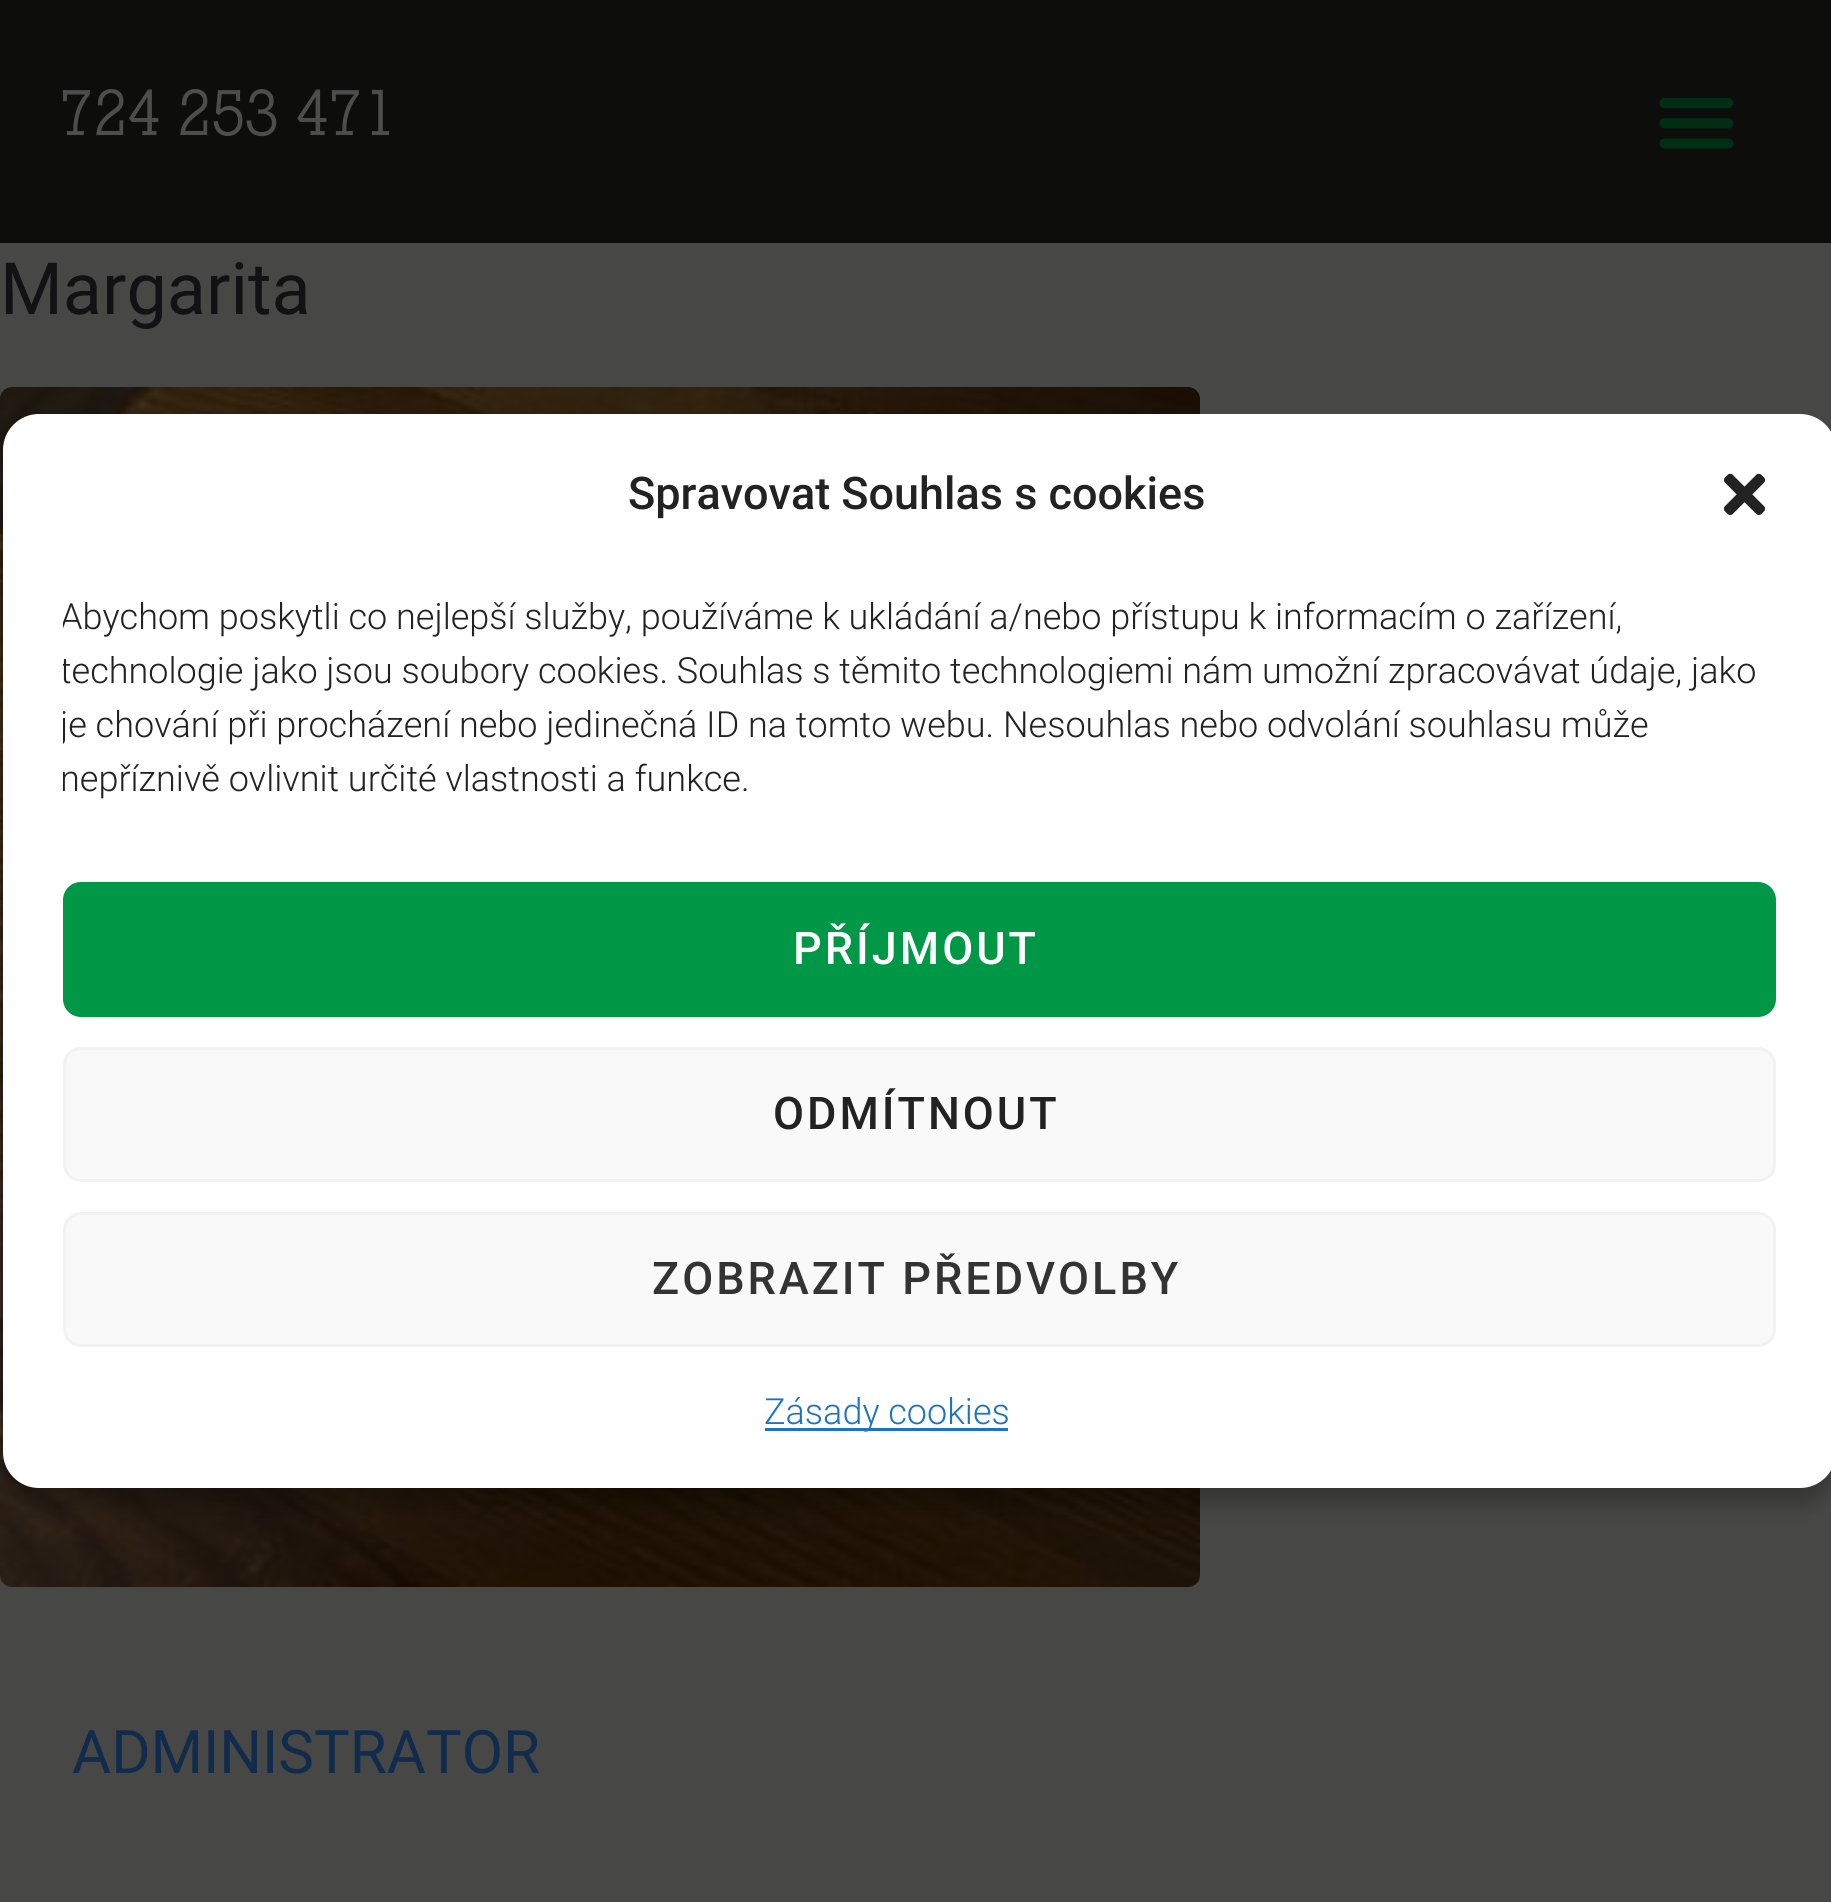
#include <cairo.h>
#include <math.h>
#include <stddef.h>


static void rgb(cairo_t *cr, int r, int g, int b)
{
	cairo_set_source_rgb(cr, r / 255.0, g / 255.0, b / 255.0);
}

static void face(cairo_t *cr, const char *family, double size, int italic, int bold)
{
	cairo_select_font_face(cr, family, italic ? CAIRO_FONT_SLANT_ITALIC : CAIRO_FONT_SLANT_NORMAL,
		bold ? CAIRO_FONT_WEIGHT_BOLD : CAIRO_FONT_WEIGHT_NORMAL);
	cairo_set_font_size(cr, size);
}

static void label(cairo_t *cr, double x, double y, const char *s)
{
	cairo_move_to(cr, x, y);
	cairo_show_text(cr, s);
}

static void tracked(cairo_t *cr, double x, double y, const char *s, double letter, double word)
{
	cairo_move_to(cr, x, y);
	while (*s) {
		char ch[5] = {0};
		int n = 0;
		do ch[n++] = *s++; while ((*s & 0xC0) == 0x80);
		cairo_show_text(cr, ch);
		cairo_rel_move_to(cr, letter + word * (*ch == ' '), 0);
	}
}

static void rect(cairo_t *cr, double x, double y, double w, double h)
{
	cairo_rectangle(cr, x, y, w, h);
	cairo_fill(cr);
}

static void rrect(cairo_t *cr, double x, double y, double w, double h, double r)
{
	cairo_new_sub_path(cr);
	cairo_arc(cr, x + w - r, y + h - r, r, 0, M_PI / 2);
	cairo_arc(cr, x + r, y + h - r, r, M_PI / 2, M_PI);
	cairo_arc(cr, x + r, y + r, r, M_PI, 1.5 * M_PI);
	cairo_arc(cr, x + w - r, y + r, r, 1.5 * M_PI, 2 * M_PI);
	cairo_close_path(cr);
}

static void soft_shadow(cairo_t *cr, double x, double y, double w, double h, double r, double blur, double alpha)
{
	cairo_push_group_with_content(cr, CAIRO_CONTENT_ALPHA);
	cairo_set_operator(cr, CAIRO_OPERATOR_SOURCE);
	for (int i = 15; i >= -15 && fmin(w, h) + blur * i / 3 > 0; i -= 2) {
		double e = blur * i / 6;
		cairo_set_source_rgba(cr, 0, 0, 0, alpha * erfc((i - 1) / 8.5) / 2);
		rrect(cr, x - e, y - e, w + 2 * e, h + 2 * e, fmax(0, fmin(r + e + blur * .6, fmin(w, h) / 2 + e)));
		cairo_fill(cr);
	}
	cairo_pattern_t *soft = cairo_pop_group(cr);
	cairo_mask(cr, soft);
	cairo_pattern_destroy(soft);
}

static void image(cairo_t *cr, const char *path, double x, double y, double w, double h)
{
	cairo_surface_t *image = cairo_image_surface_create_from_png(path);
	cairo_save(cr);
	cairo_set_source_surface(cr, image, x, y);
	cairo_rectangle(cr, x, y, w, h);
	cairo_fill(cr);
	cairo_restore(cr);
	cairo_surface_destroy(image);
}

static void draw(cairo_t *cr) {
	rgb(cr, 71, 71, 70);
	cairo_paint(cr);
	rgb(cr, 13, 13, 12);
	rect(cr, 0, 0, 1831, 243);
	face(cr, "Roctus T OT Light", 67.25, 0, 0);
	rgb(cr, 77, 77, 77);
	label(cr, 60, 135, "724 253 471");
	image(cr, "image0.png", 1659, 98, 75, 51);
	face(cr, "Roboto", 72, 0, 0);
	rgb(cr, 18, 18, 20);
	label(cr, 0, 314, "Margarita");
	image(cr, "image1.png", 0, 387, 1200, 1200);
	face(cr, "Roboto", 60, 0, 0);
	rgb(cr, 17, 43, 76);
	label(cr, 72, 1773, "ADMINISTRATOR");
	cairo_save(cr);
	cairo_set_fill_rule(cr, CAIRO_FILL_RULE_EVEN_ODD);
	cairo_new_path(cr);
	cairo_move_to(cr, 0, 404);
	cairo_line_to(cr, 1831, 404);
	cairo_line_to(cr, 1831, 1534);
	cairo_line_to(cr, 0, 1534);
	cairo_close_path(cr);
	cairo_move_to(cr, 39, 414);
	cairo_line_to(cr, 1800, 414);
	cairo_curve_to(cr, 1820, 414, 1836, 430, 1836, 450);
	cairo_line_to(cr, 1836, 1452);
	cairo_curve_to(cr, 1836, 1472, 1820, 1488, 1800, 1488);
	cairo_line_to(cr, 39, 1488);
	cairo_curve_to(cr, 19, 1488, 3, 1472, 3, 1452);
	cairo_line_to(cr, 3, 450);
	cairo_curve_to(cr, 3, 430, 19, 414, 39, 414);
	cairo_close_path(cr);
	cairo_clip(cr);
	rgb(cr, 0, 0, 0);
	soft_shadow(cr, 3, 432, 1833, 1074, 36, 9, 0.23);
	cairo_restore(cr);
	rgb(cr, 255, 255, 255);
	rrect(cr, 3, 414, 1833, 1074, 36);
	cairo_fill(cr);
	face(cr, "Roboto Medium", 45, 0, 0);
	rgb(cr, 34, 34, 34);
	label(cr, 628, 509, "Spravovat Souhlas s cookies");
	image(cr, "image2.png", 1723, 473, 43, 42);
	cairo_save(cr);
	cairo_rectangle(cr, 63, 591, 1713, 231);
	cairo_clip(cr);
	face(cr, "Roboto Light", 36, 0, 0);
	label(cr, 60, 629, "Abychom poskytli co nejlepší služby, používáme k ukládání a/nebo přístupu k informacím o zařízení,");
	label(cr, 60, 683, "technologie jako jsou soubory cookies. Souhlas s těmito technologiemi nám umožní zpracovávat údaje, jako");
	label(cr, 60, 737, "je chování při procházení nebo jedinečná ID na tomto webu. Nesouhlas nebo odvolání souhlasu může");
	label(cr, 60, 791, "nepříznivě ovlivnit určité vlastnosti a funkce.");
	cairo_restore(cr);
	rgb(cr, 0, 152, 70);
	rrect(cr, 64.5, 883.5, 1710, 132, 16.5);
	cairo_fill_preserve(cr);
	cairo_set_line_width(cr, 3);
	cairo_stroke(cr);
	rgb(cr, 255, 255, 255);
	tracked(cr, 793, 964, "PŘÍJMOUT", 3, 0);
	rgb(cr, 249, 249, 249);
	rrect(cr, 64.5, 1048.5, 1710, 132, 16.5);
	cairo_fill_preserve(cr);
	rgb(cr, 242, 242, 242);
	cairo_stroke(cr);
	rgb(cr, 34, 34, 34);
	tracked(cr, 773, 1129, "ODMÍTNOUT", 3, 0);
	rgb(cr, 249, 249, 249);
	rrect(cr, 64.5, 1213.5, 1710, 132, 16.5);
	cairo_fill_preserve(cr);
	rgb(cr, 242, 242, 242);
	cairo_stroke(cr);
	rgb(cr, 51, 51, 51);
	tracked(cr, 652, 1294, "ZOBRAZIT PŘEDVOLBY", 3, 0);
	rgb(cr, 30, 115, 190);
	rect(cr, 765, 1428, 243, 3);
	face(cr, "Roboto Light", 36, 0, 0);
	label(cr, 764, 1424, "Zásady cookies");
}

int main(void) {
	cairo_surface_t *surface = cairo_image_surface_create(CAIRO_FORMAT_RGB24, 1831, 1902);
	cairo_t *cr = cairo_create(surface);
	cairo_font_options_t *options = cairo_font_options_create();
	cairo_font_options_set_hint_metrics(options, CAIRO_HINT_METRICS_OFF);
	cairo_font_options_set_hint_style(options, CAIRO_HINT_STYLE_NONE);
	cairo_set_font_options(cr, options);
	cairo_set_miter_limit(cr, 4);
	draw(cr);
	cairo_surface_write_to_png(surface, "render.png");
	cairo_font_options_destroy(options);
	cairo_destroy(cr);
	cairo_surface_destroy(surface);
	return 0;
}
